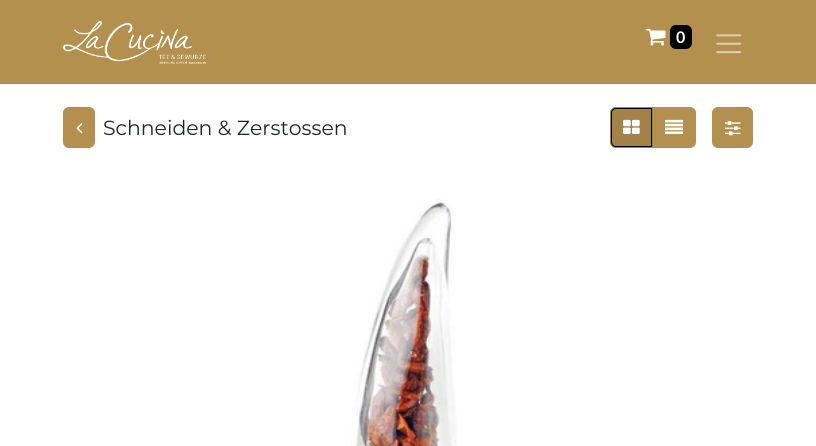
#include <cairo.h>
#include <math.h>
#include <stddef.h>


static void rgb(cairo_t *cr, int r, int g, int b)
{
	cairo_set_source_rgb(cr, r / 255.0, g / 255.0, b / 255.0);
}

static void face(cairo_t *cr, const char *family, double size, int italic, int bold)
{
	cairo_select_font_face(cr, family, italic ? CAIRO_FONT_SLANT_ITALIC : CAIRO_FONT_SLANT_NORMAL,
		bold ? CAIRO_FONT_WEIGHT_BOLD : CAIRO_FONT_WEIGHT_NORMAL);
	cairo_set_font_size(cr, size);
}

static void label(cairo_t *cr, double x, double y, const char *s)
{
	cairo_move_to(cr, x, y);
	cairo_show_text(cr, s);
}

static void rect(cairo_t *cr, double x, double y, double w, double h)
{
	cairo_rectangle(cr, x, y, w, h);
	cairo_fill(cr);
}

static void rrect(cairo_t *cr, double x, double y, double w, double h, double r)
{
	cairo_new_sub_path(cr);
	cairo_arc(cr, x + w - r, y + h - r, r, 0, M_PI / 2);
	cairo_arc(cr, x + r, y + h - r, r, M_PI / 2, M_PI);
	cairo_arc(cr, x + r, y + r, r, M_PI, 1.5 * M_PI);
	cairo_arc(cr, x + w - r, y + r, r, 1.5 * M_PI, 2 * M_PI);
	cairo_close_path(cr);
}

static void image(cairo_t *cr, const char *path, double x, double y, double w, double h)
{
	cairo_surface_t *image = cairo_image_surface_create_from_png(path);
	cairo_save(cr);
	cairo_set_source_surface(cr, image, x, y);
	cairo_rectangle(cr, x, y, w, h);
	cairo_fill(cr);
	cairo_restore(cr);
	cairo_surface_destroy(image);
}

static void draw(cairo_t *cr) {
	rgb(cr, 255, 255, 255);
	cairo_paint(cr);
	rgb(cr, 180, 144, 79);
	rect(cr, 0, 0, 816, 84);
	image(cr, "image0.png", 63, 21, 143, 43);
	image(cr, "image1.png", 646, 29, 20, 17);
	rgb(cr, 0, 0, 0);
	rrect(cr, 670, 25, 22, 24, 6);
	cairo_fill(cr);
	face(cr, "Lato", 16, 0, 1);
	rgb(cr, 255, 255, 255);
	label(cr, 676, 43, "0");
	image(cr, "image2.png", 716, 34, 26, 20);
	rgb(cr, 180, 144, 80);
	rrect(cr, 63.5, 107.5, 31, 40, 5.5);
	cairo_fill_preserve(cr);
	cairo_set_line_width(cr, 1);
	cairo_stroke(cr);
	image(cr, "image3.png", 76, 123, 7, 11);
	face(cr, "Montserrat", 20.4, 0, 0);
	rgb(cr, 33, 37, 41);
	label(cr, 103, 135, "Schneiden & Zerstossen");
	rgb(cr, 180, 144, 80);
	cairo_new_path(cr);
	cairo_move_to(cr, 652.5, 107.5);
	cairo_line_to(cr, 690, 107.5);
	cairo_curve_to(cr, 693, 107.5, 695.5, 110, 695.5, 113);
	cairo_line_to(cr, 695.5, 142);
	cairo_curve_to(cr, 695.5, 145, 693, 147.5, 690, 147.5);
	cairo_line_to(cr, 652.5, 147.5);
	cairo_close_path(cr);
	cairo_fill_preserve(cr);
	cairo_stroke(cr);
	rgb(cr, 162, 130, 72);
	cairo_new_path(cr);
	cairo_move_to(cr, 616, 107);
	cairo_line_to(cr, 653, 107);
	cairo_line_to(cr, 653, 148);
	cairo_line_to(cr, 616, 148);
	cairo_curve_to(cr, 612.5, 148, 610, 145.5, 610, 142);
	cairo_line_to(cr, 610, 113);
	cairo_curve_to(cr, 610, 109.5, 612.5, 107, 616, 107);
	cairo_close_path(cr);
	cairo_fill(cr);
	cairo_new_path(cr);
	cairo_move_to(cr, 616, 108.5);
	cairo_line_to(cr, 651.5, 108.5);
	cairo_line_to(cr, 651.5, 146.5);
	cairo_line_to(cr, 616, 146.5);
	cairo_curve_to(cr, 613.5, 146.5, 611.5, 144.5, 611.5, 142);
	cairo_line_to(cr, 611.5, 113);
	cairo_curve_to(cr, 611.5, 110.5, 613.5, 108.5, 616, 108.5);
	cairo_close_path(cr);
	rgb(cr, 0, 0, 0);
	cairo_stroke(cr);
	image(cr, "image4.png", 623, 119, 17, 15);
	image(cr, "image5.png", 665, 119, 18, 15);
	rgb(cr, 180, 144, 80);
	rrect(cr, 712.5, 107.5, 40, 40, 5.5);
	cairo_fill_preserve(cr);
	cairo_stroke(cr);
	image(cr, "image6.png", 725, 121, 16, 15);
	image(cr, "image7.png", 351, 198, 106, 248);
}

int main(void) {
	cairo_surface_t *surface = cairo_image_surface_create(CAIRO_FORMAT_RGB24, 816, 446);
	cairo_t *cr = cairo_create(surface);
	cairo_font_options_t *options = cairo_font_options_create();
	cairo_font_options_set_hint_metrics(options, CAIRO_HINT_METRICS_OFF);
	cairo_font_options_set_hint_style(options, CAIRO_HINT_STYLE_NONE);
	cairo_set_font_options(cr, options);
	cairo_set_miter_limit(cr, 4);
	draw(cr);
	cairo_surface_write_to_png(surface, "render.png");
	cairo_font_options_destroy(options);
	cairo_destroy(cr);
	cairo_surface_destroy(surface);
	return 0;
}
